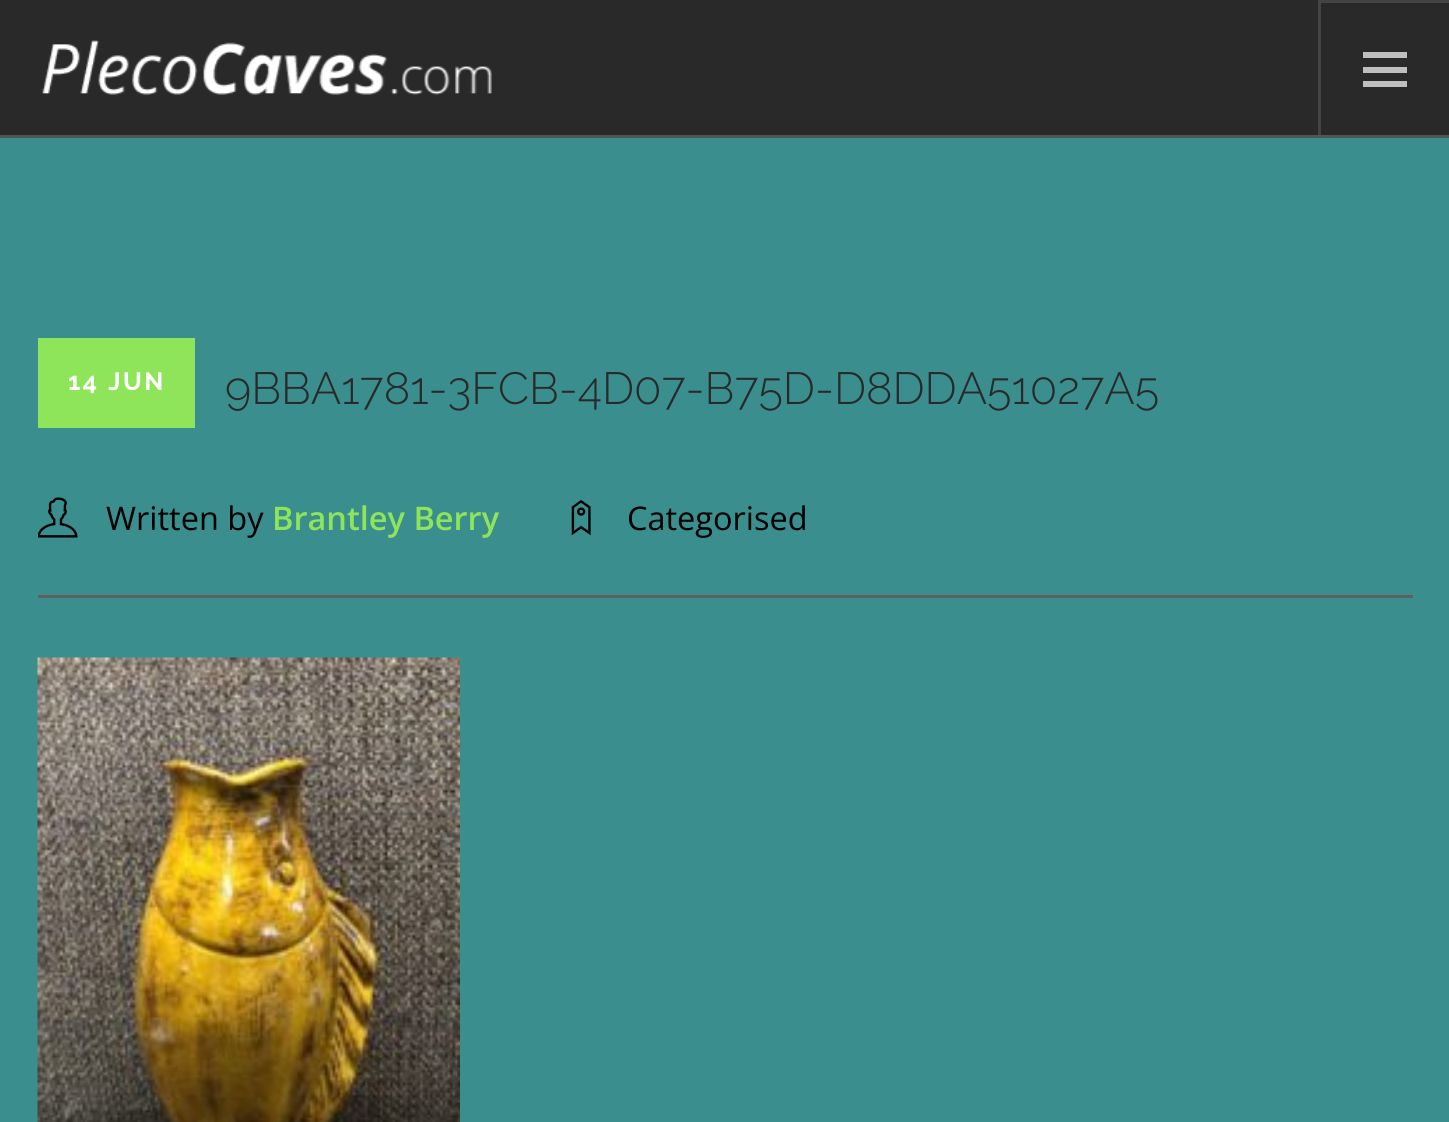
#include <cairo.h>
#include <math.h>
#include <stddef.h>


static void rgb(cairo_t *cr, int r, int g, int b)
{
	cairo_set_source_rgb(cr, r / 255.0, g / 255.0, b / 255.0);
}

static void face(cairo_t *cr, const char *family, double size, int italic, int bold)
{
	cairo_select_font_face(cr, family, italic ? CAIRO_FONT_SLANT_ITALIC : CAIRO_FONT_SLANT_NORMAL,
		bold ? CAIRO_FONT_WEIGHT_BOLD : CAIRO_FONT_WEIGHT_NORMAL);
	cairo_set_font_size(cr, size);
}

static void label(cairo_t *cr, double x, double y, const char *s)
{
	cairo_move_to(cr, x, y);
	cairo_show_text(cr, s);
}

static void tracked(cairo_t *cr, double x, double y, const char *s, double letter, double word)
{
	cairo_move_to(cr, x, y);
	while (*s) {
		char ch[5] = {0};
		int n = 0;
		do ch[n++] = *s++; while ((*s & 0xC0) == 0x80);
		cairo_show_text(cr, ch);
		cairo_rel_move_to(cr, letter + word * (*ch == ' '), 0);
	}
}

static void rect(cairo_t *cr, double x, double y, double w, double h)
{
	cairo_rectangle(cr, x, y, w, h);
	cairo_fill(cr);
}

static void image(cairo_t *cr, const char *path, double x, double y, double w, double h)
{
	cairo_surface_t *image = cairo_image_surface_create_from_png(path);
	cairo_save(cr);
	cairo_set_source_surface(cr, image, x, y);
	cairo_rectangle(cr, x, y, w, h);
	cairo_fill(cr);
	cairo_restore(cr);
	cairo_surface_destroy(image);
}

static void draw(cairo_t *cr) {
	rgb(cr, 58, 142, 142);
	cairo_paint(cr);
	rgb(cr, 41, 41, 41);
	rect(cr, 0, 0, 1449, 135);
	rgb(cr, 84, 84, 84);
	rect(cr, 0, 135, 1449, 3);
	image(cr, "image0.png", 42, 40, 450, 55);
	rgb(cr, 68, 68, 68);
	rect(cr, 1318, 0, 131, 3);
	rect(cr, 1318, 0, 3, 135);
	rgb(cr, 191, 191, 191);
	cairo_new_path(cr);
	cairo_move_to(cr, 1407, 52);
	cairo_line_to(cr, 1407, 58);
	cairo_line_to(cr, 1363, 58);
	cairo_line_to(cr, 1363, 52);
	cairo_close_path(cr);
	cairo_move_to(cr, 1363, 73);
	cairo_line_to(cr, 1407, 73);
	cairo_line_to(cr, 1407, 67);
	cairo_line_to(cr, 1363, 67);
	cairo_close_path(cr);
	cairo_move_to(cr, 1363, 87);
	cairo_line_to(cr, 1407, 87);
	cairo_line_to(cr, 1407, 81);
	cairo_line_to(cr, 1363, 81);
	cairo_close_path(cr);
	cairo_fill(cr);
	rgb(cr, 143, 229, 89);
	rect(cr, 38, 338, 157, 90);
	face(cr, "Raleway", 25, 0, 1);
	rgb(cr, 255, 255, 255);
	tracked(cr, 68, 390, "14 JUN", 2.5, 0);
	face(cr, "Raleway Light", 45, 0, 0);
	rgb(cr, 41, 41, 41);
	label(cr, 225, 404, "9BBA1781-3FCB-4D07-B75D-D8DDA51027A5");
	image(cr, "image1.png", 38, 497, 40, 41);
	face(cr, "Open Sans", 32.5, 0, 0);
	rgb(cr, 0, 0, 0);
	label(cr, 106, 530, "Written by");
	face(cr, "Open Sans SemiBold", 32.5, 0, 0);
	rgb(cr, 143, 229, 89);
	label(cr, 272, 530, "Brantley Berry");
	image(cr, "image2.png", 571, 500, 20, 36);
	face(cr, "Open Sans", 32.5, 0, 0);
	rgb(cr, 0, 0, 0);
	label(cr, 627, 530, "Categorised");
	rgb(cr, 96, 96, 96);
	rect(cr, 38, 595, 1375, 3);
	image(cr, "image3.png", 37, 657, 423, 465);
}

int main(void) {
	cairo_surface_t *surface = cairo_image_surface_create(CAIRO_FORMAT_RGB24, 1449, 1122);
	cairo_t *cr = cairo_create(surface);
	cairo_font_options_t *options = cairo_font_options_create();
	cairo_font_options_set_hint_metrics(options, CAIRO_HINT_METRICS_OFF);
	cairo_font_options_set_hint_style(options, CAIRO_HINT_STYLE_NONE);
	cairo_set_font_options(cr, options);
	cairo_set_miter_limit(cr, 4);
	draw(cr);
	cairo_surface_write_to_png(surface, "render.png");
	cairo_font_options_destroy(options);
	cairo_destroy(cr);
	cairo_surface_destroy(surface);
	return 0;
}
